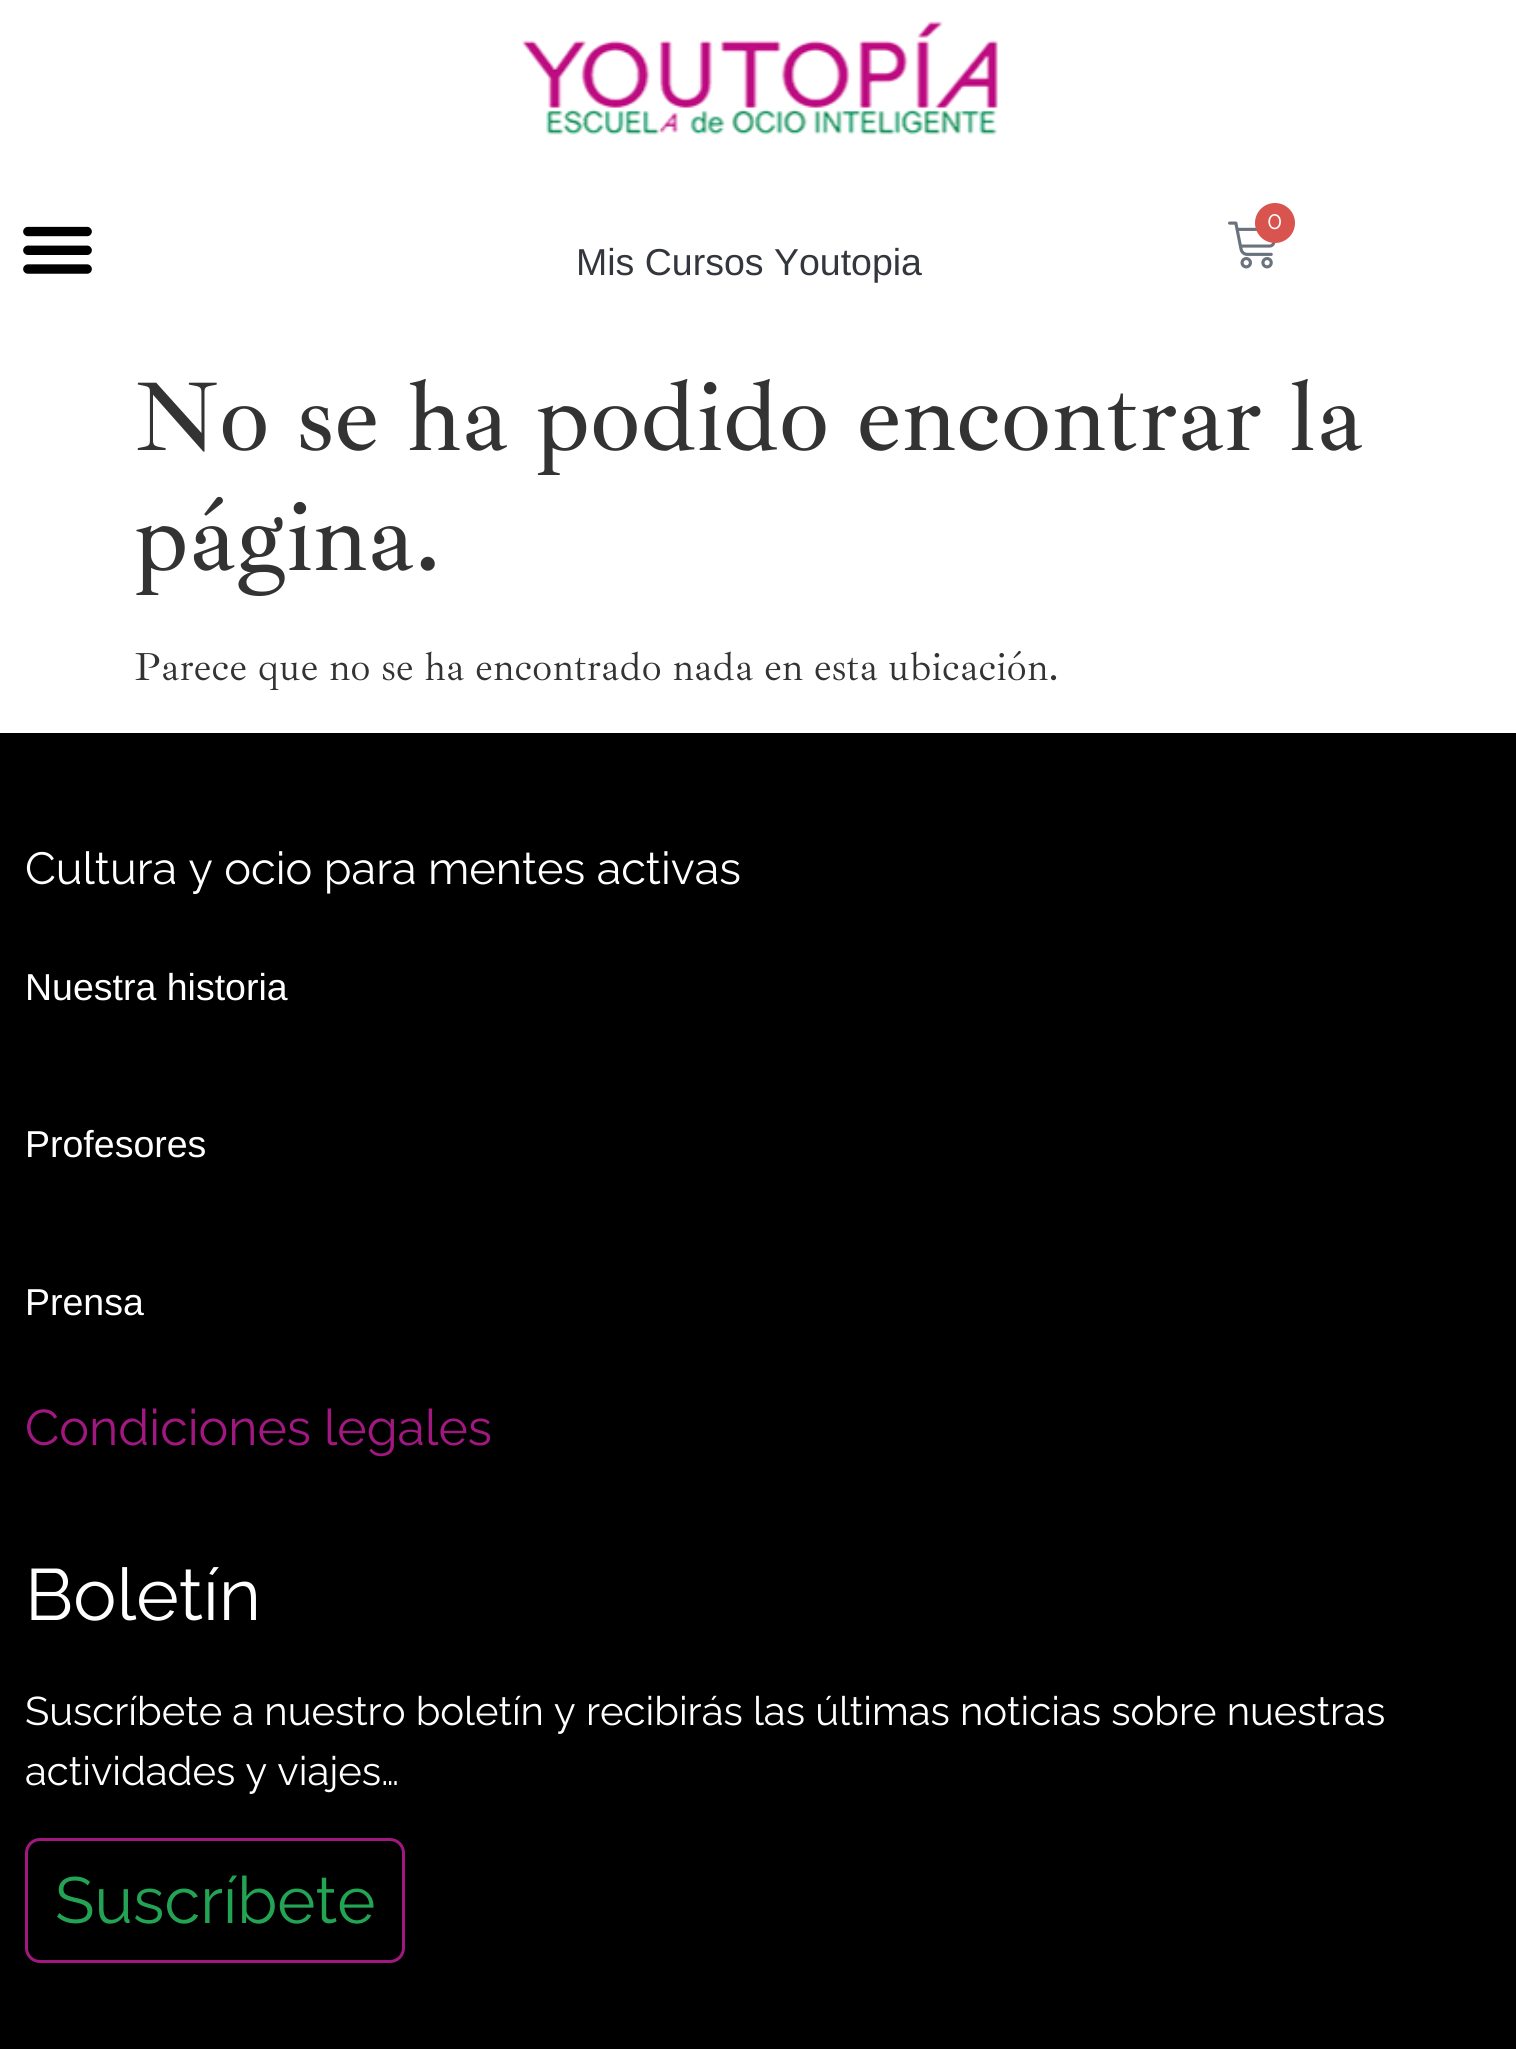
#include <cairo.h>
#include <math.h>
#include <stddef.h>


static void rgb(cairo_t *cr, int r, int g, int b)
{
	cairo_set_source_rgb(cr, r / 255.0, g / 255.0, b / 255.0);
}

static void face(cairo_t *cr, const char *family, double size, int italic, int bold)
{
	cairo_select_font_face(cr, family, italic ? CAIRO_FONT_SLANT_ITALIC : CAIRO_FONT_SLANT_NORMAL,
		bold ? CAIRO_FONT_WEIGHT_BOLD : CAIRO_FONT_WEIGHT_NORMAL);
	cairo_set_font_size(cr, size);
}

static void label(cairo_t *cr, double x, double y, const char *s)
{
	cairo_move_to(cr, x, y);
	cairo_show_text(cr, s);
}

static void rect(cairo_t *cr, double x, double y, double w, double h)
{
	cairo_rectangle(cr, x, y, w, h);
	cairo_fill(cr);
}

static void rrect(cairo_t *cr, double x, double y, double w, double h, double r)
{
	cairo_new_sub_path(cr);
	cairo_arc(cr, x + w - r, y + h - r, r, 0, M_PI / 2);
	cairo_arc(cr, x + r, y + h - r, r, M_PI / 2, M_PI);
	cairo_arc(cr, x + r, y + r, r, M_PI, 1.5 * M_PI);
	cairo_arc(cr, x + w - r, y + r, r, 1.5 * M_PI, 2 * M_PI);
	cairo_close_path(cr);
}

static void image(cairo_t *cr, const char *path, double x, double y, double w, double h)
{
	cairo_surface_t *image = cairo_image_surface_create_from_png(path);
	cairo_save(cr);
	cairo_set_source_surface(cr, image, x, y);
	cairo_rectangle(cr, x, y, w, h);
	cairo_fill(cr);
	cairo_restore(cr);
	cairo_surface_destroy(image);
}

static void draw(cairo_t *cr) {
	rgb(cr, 255, 255, 255);
	cairo_paint(cr);
	image(cr, "image0.png", 521, 21, 477, 114);
	image(cr, "image1.png", 1228, 221, 48, 48);
	rgb(cr, 217, 83, 79);
	cairo_arc(cr, 1275, 223, 20, 0, 2 * M_PI);
	cairo_fill(cr);
	face(cr, "Raleway", 25, 0, 0);
	rgb(cr, 255, 255, 255);
	label(cr, 1267, 229, "0");
	image(cr, "image2.png", 23, 226, 69, 48);
	face(cr, "Liberation Sans", 37.5, 0, 0);
	rgb(cr, 51, 55, 61);
	label(cr, 576, 275, "Mis Cursos Youtopia");
	face(cr, "Ibarra Real Nova Medium", 100, 0, 0);
	rgb(cr, 51, 51, 51);
	label(cr, 134, 450, "No se ha podido encontrar la");
	label(cr, 134, 570, "página.");
	face(cr, "Ibarra Real Nova", 40, 0, 0);
	label(cr, 134, 680, "Parece que no se ha encontrado nada en esta ubicación.");
	rgb(cr, 0, 0, 0);
	rect(cr, 0, 733, 1516, 1316);
	face(cr, "Raleway", 45, 0, 0);
	rgb(cr, 255, 255, 255);
	label(cr, 25, 884, "Cultura y ocio para mentes activas");
	face(cr, "Liberation Sans", 37.5, 0, 0);
	label(cr, 25, 1000, "Nuestra historia");
	label(cr, 25, 1157, "Profesores");
	label(cr, 25, 1315, "Prensa");
	face(cr, "Raleway", 50, 0, 0);
	rgb(cr, 163, 23, 129);
	label(cr, 25, 1445, "Condiciones legales");
	face(cr, "Raleway", 72.5, 0, 0);
	rgb(cr, 255, 255, 255);
	label(cr, 25, 1620, "Boletín");
	face(cr, "Raleway", 40, 0, 0);
	label(cr, 25, 1725, "Suscríbete a nuestro boletín y recibirás las últimas noticias sobre nuestras");
	label(cr, 25, 1785, "actividades y viajes…");
	rrect(cr, 26.5, 1839.5, 377, 122, 13.5);
	rgb(cr, 163, 23, 129);
	cairo_set_line_width(cr, 3);
	cairo_stroke(cr);
	face(cr, "Raleway", 65, 0, 0);
	rgb(cr, 35, 164, 85);
	label(cr, 55, 1923, "Suscríbete");
}

int main(void) {
	cairo_surface_t *surface = cairo_image_surface_create(CAIRO_FORMAT_RGB24, 1516, 2049);
	cairo_t *cr = cairo_create(surface);
	cairo_font_options_t *options = cairo_font_options_create();
	cairo_font_options_set_hint_metrics(options, CAIRO_HINT_METRICS_OFF);
	cairo_font_options_set_hint_style(options, CAIRO_HINT_STYLE_NONE);
	cairo_set_font_options(cr, options);
	cairo_set_miter_limit(cr, 4);
	draw(cr);
	cairo_surface_write_to_png(surface, "render.png");
	cairo_font_options_destroy(options);
	cairo_destroy(cr);
	cairo_surface_destroy(surface);
	return 0;
}
